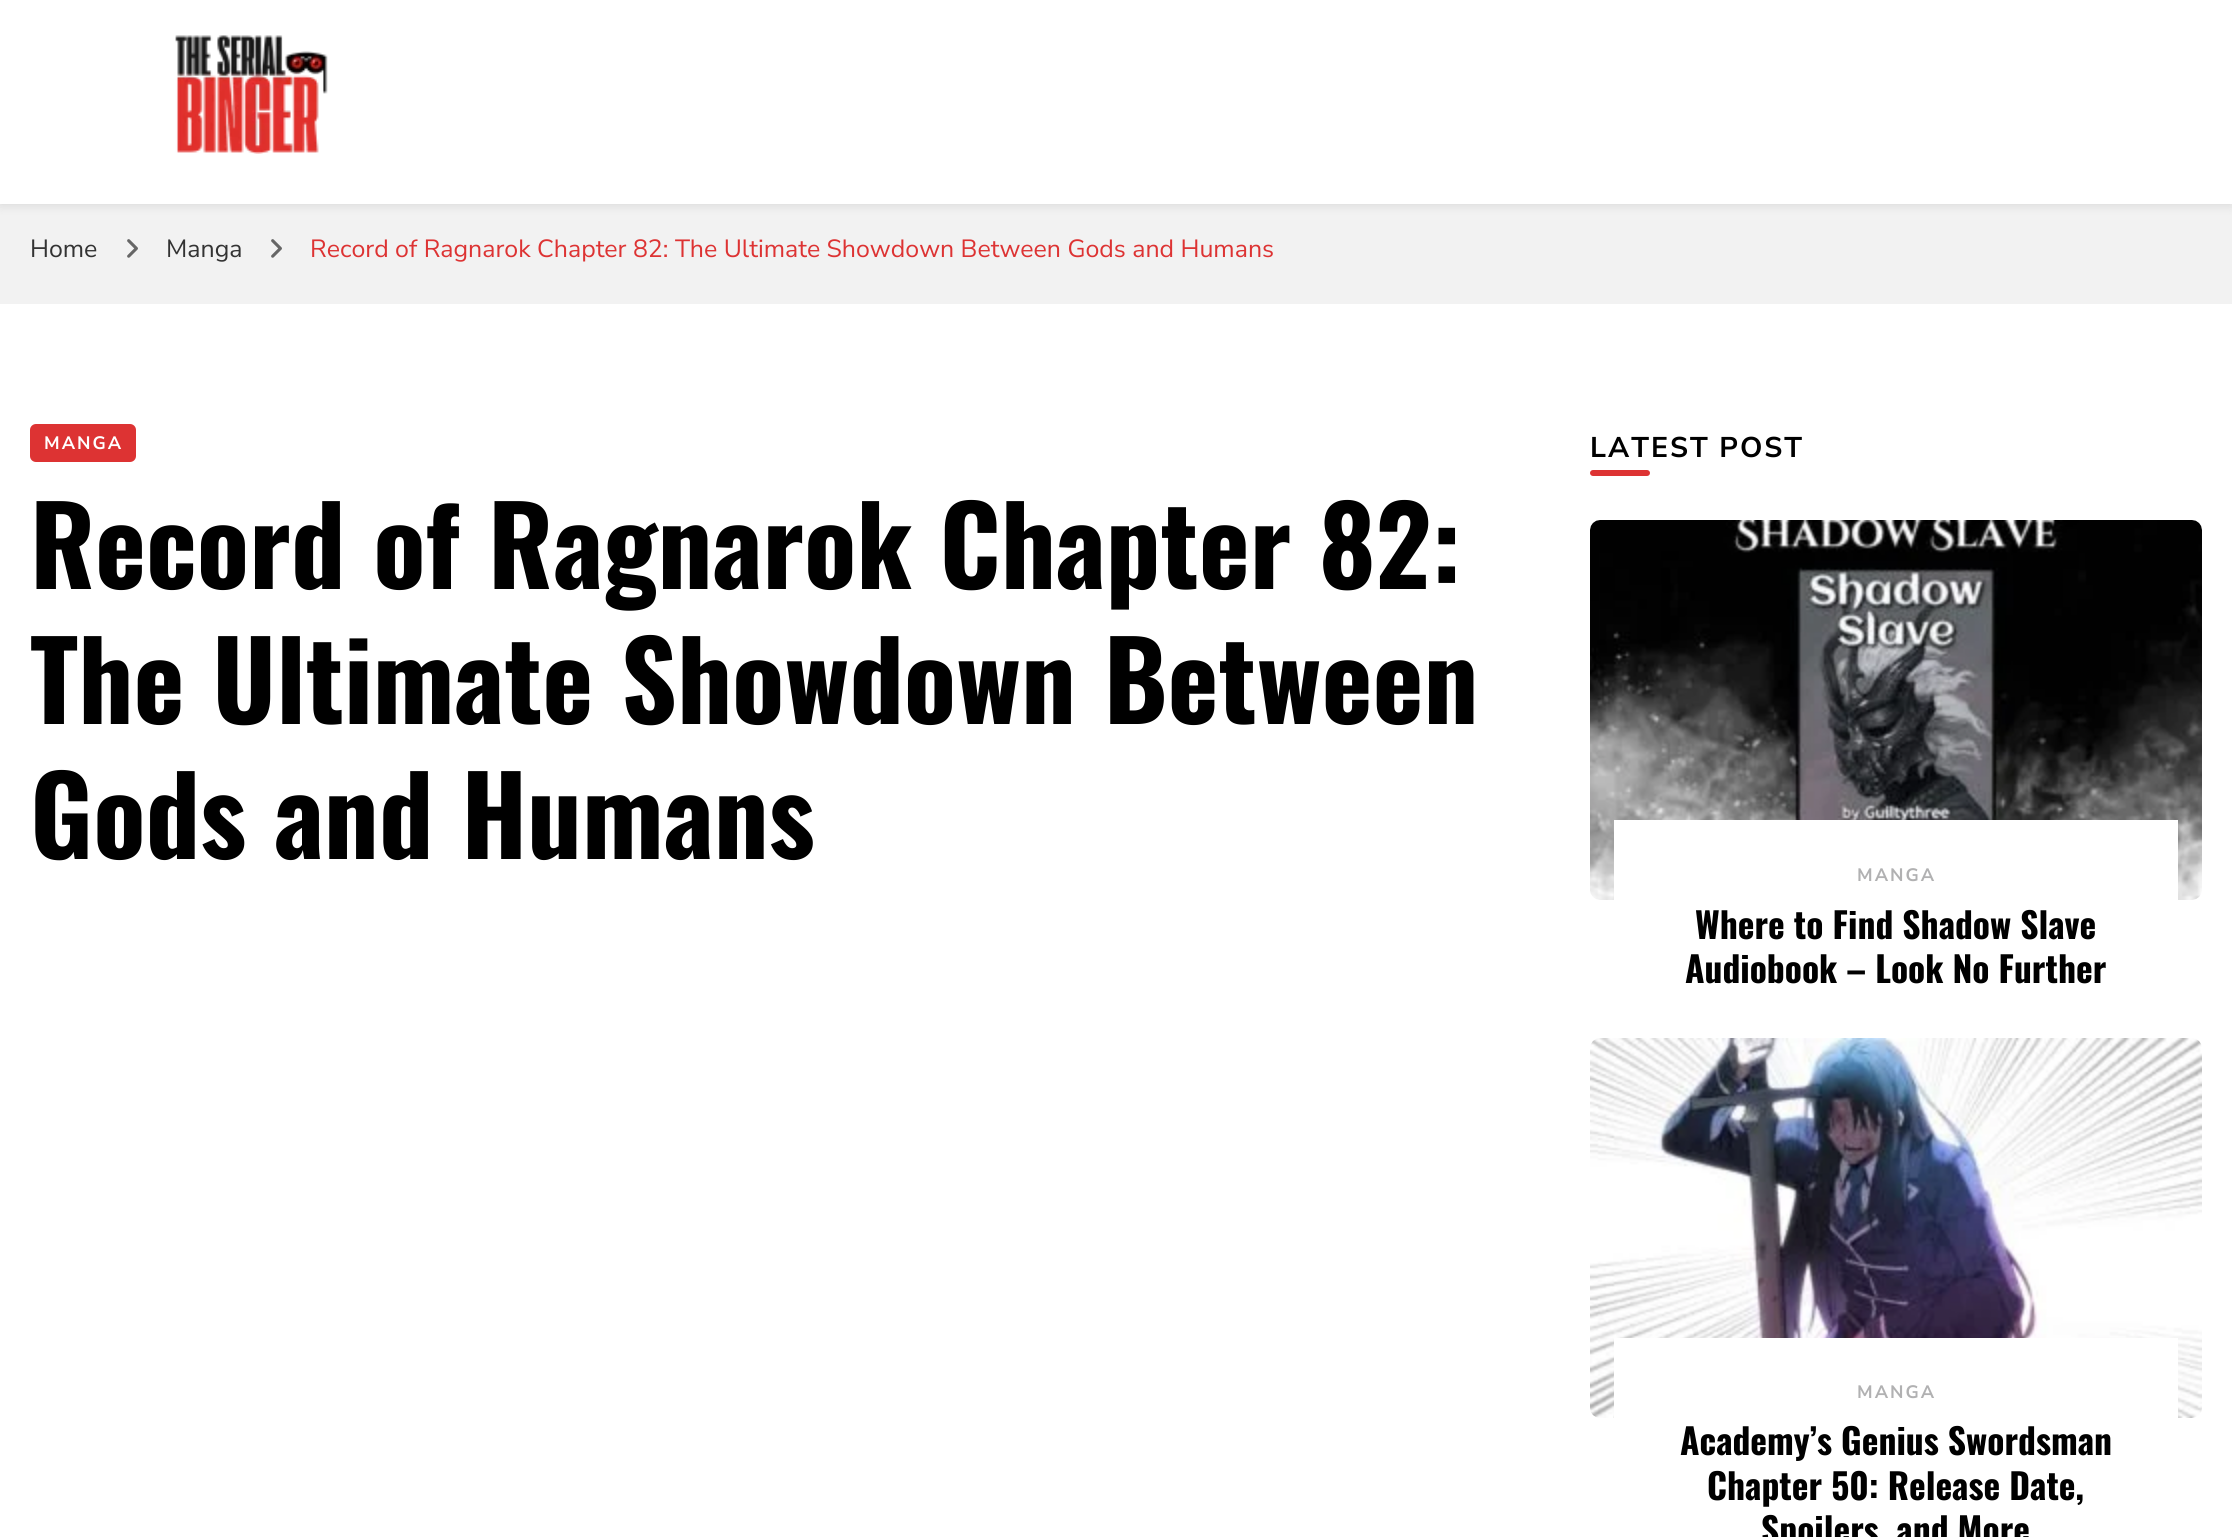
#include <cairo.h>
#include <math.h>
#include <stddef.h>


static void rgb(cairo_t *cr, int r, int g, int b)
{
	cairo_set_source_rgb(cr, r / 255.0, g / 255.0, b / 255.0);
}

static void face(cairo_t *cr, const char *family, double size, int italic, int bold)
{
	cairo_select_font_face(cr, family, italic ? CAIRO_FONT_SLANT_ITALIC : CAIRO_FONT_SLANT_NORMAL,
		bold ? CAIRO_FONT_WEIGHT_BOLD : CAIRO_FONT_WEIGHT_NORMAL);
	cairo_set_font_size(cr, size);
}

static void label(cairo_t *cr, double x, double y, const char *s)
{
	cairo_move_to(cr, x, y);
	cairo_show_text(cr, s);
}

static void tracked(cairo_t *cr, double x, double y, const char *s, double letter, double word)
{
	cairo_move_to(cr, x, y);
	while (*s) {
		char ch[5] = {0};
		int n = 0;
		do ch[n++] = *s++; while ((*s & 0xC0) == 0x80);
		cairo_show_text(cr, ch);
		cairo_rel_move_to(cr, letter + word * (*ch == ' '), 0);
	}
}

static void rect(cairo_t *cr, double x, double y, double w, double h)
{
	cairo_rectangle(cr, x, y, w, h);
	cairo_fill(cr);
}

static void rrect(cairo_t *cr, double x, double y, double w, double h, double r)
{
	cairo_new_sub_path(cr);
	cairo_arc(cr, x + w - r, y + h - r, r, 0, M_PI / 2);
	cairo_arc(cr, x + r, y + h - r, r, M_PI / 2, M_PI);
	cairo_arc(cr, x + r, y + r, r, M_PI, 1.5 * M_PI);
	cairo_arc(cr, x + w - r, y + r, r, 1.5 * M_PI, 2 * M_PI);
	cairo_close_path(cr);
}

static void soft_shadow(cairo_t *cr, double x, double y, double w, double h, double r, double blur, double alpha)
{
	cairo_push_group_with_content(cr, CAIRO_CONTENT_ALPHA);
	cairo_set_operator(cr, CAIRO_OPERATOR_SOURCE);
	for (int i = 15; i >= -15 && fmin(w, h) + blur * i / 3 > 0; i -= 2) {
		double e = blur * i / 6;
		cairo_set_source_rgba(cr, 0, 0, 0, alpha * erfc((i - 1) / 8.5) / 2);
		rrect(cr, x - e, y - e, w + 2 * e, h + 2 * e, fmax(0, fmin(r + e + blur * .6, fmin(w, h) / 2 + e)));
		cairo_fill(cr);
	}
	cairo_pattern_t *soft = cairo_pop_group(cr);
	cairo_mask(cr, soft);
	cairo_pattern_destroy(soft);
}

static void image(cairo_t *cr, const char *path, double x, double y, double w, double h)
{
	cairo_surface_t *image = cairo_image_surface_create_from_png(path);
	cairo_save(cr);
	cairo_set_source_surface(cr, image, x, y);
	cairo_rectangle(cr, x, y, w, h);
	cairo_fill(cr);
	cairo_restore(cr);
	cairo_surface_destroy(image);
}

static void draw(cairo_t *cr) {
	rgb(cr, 242, 242, 242);
	cairo_paint(cr);
	rgb(cr, 0, 0, 0);
	soft_shadow(cr, 0, 2, 2232, 204, 0, 5, 0.1);
	rgb(cr, 255, 255, 255);
	rect(cr, 0, 0, 2232, 204);
	image(cr, "image0.png", 175, 35, 153, 119);
	face(cr, "Nunito Sans", 24.9, 0, 0);
	rgb(cr, 51, 51, 51);
	label(cr, 30, 257, "Home");
	image(cr, "image1.png", 127, 239, 11, 19);
	label(cr, 166, 257, "Manga");
	image(cr, "image1.png", 271, 239, 11, 19);
	rgb(cr, 221, 51, 51);
	label(cr, 310, 257, "Record of Ragnarok Chapter 82: The Ultimate Showdown Between Gods and Humans");
	rgb(cr, 255, 255, 255);
	rect(cr, 0, 304, 2232, 1233);
	rgb(cr, 221, 51, 51);
	rrect(cr, 30, 424, 106, 38, 6);
	cairo_fill(cr);
	face(cr, "Nunito Sans", 18, 0, 1);
	rgb(cr, 255, 255, 255);
	tracked(cr, 44, 449, "MANGA", 2, 0);
	face(cr, "Oswald", 108.5, 0, 1);
	rgb(cr, 0, 0, 0);
	label(cr, 30, 589, "Record of Ragnarok Chapter 82:");
	label(cr, 30, 724, "The Ultimate Showdown Between");
	label(cr, 30, 859, "Gods and Humans");
	face(cr, "Nunito Sans", 28.5, 0, 1);
	tracked(cr, 1590, 457, "LATEST POST", 2, 0);
	rgb(cr, 221, 51, 51);
	rrect(cr, 1590, 470, 60, 6, 3);
	cairo_fill(cr);
	image(cr, "image2.png", 1590, 520, 612, 380);
	rgb(cr, 255, 255, 255);
	rect(cr, 1614, 820, 564, 80);
	face(cr, "Nunito Sans", 18, 0, 1);
	rgb(cr, 177, 177, 178);
	tracked(cr, 1857, 881, "MANGA", 2, 0);
	face(cr, "Oswald", 35.5, 0, 1);
	rgb(cr, 0, 0, 0);
	label(cr, 1695, 939, "Where to Find Shadow Slave");
	label(cr, 1685, 983, "Audiobook – Look No Further");
	image(cr, "image3.png", 1590, 1038, 612, 380);
	rgb(cr, 255, 255, 255);
	rect(cr, 1614, 1338, 564, 80);
	face(cr, "Nunito Sans", 18, 0, 1);
	rgb(cr, 177, 177, 178);
	tracked(cr, 1857, 1398, "MANGA", 2, 0);
	face(cr, "Oswald", 35.5, 0, 1);
	rgb(cr, 0, 0, 0);
	label(cr, 1680, 1455, "Academy’s Genius Swordsman");
	label(cr, 1707, 1500, "Chapter 50: Release Date,");
	label(cr, 1761, 1544, "Spoilers, and More");
}

int main(void) {
	cairo_surface_t *surface = cairo_image_surface_create(CAIRO_FORMAT_RGB24, 2232, 1537);
	cairo_t *cr = cairo_create(surface);
	cairo_font_options_t *options = cairo_font_options_create();
	cairo_font_options_set_hint_metrics(options, CAIRO_HINT_METRICS_OFF);
	cairo_font_options_set_hint_style(options, CAIRO_HINT_STYLE_NONE);
	cairo_set_font_options(cr, options);
	cairo_set_miter_limit(cr, 4);
	draw(cr);
	cairo_surface_write_to_png(surface, "render.png");
	cairo_font_options_destroy(options);
	cairo_destroy(cr);
	cairo_surface_destroy(surface);
	return 0;
}
